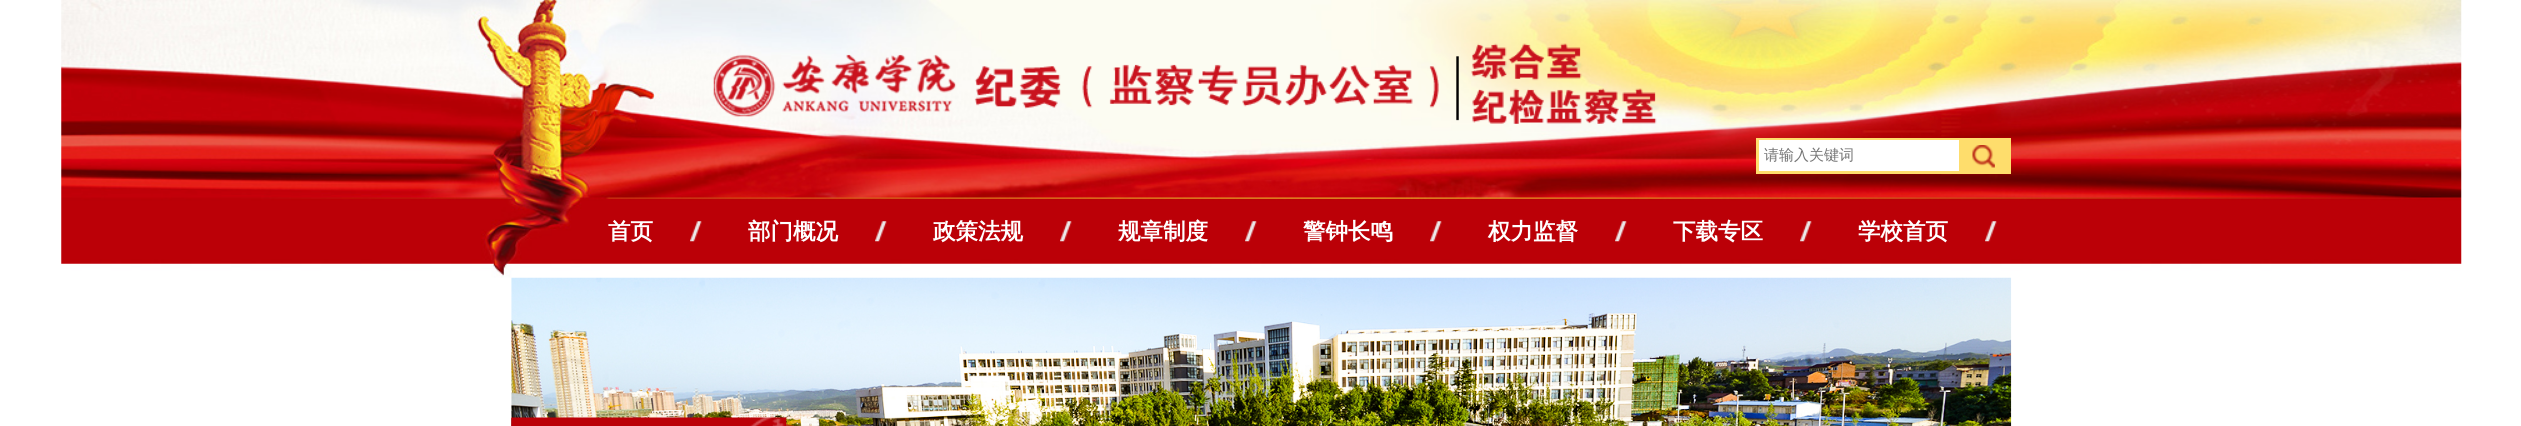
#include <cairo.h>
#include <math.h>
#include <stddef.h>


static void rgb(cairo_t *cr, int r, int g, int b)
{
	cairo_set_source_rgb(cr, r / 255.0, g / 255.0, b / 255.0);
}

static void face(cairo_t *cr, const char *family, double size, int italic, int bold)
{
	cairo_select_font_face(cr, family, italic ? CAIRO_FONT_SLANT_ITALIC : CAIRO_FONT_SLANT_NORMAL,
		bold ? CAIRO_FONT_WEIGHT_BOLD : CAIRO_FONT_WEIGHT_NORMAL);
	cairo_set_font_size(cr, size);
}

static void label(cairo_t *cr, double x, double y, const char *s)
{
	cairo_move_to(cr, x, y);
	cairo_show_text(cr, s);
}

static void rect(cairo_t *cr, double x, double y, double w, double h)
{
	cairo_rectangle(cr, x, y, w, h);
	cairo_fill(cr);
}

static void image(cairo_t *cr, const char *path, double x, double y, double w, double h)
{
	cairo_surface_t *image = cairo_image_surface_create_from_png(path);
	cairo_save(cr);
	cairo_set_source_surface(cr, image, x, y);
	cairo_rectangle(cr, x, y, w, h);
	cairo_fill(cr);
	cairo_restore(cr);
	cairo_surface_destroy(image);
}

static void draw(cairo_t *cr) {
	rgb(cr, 255, 255, 255);
	cairo_paint(cr);
	image(cr, "image0.png", 61, 0, 2401, 278);
	image(cr, "image1.png", 713, 43, 944, 81);
	cairo_rectangle(cr, 1757.5, 139.5, 252, 33);
	rgb(cr, 254, 221, 108);
	cairo_set_line_width(cr, 3);
	cairo_stroke(cr);
	rgb(cr, 255, 255, 255);
	rect(cr, 1759, 140, 200, 31);
	face(cr, "WenQuanYi Zen Hei Medium", 15, 0, 0);
	rgb(cr, 117, 117, 117);
	label(cr, 1764, 160, "请输入关键词");
	rgb(cr, 254, 221, 108);
	rect(cr, 1959, 141, 49, 30);
	image(cr, "image2.png", 1972, 145, 23, 23);
	image(cr, "image3.png", 690, 221, 12, 21);
	face(cr, "WenQuanYi Zen Hei", 22.5, 0, 1);
	rgb(cr, 255, 255, 255);
	label(cr, 608, 239, "首页");
	image(cr, "image4.png", 875, 221, 12, 21);
	label(cr, 748, 239, "部门概况");
	image(cr, "image4.png", 1060, 221, 12, 21);
	label(cr, 933, 239, "政策法规");
	image(cr, "image4.png", 1245, 221, 12, 21);
	label(cr, 1118, 239, "规章制度");
	image(cr, "image4.png", 1430, 221, 12, 21);
	label(cr, 1303, 239, "警钟长鸣");
	image(cr, "image4.png", 1615, 221, 12, 21);
	label(cr, 1488, 239, "权力监督");
	image(cr, "image3.png", 1800, 221, 12, 21);
	label(cr, 1673, 239, "下载专区");
	image(cr, "image3.png", 1985, 221, 12, 21);
	label(cr, 1858, 239, "学校首页");
	image(cr, "image5.png", 511, 277, 1501, 149);
	image(cr, "image6.png", 511, 417, 276, 9);
}

int main(void) {
	cairo_surface_t *surface = cairo_image_surface_create(CAIRO_FORMAT_RGB24, 2521, 426);
	cairo_t *cr = cairo_create(surface);
	cairo_font_options_t *options = cairo_font_options_create();
	cairo_font_options_set_hint_metrics(options, CAIRO_HINT_METRICS_OFF);
	cairo_font_options_set_hint_style(options, CAIRO_HINT_STYLE_NONE);
	cairo_set_font_options(cr, options);
	cairo_set_miter_limit(cr, 4);
	draw(cr);
	cairo_surface_write_to_png(surface, "render.png");
	cairo_font_options_destroy(options);
	cairo_destroy(cr);
	cairo_surface_destroy(surface);
	return 0;
}
